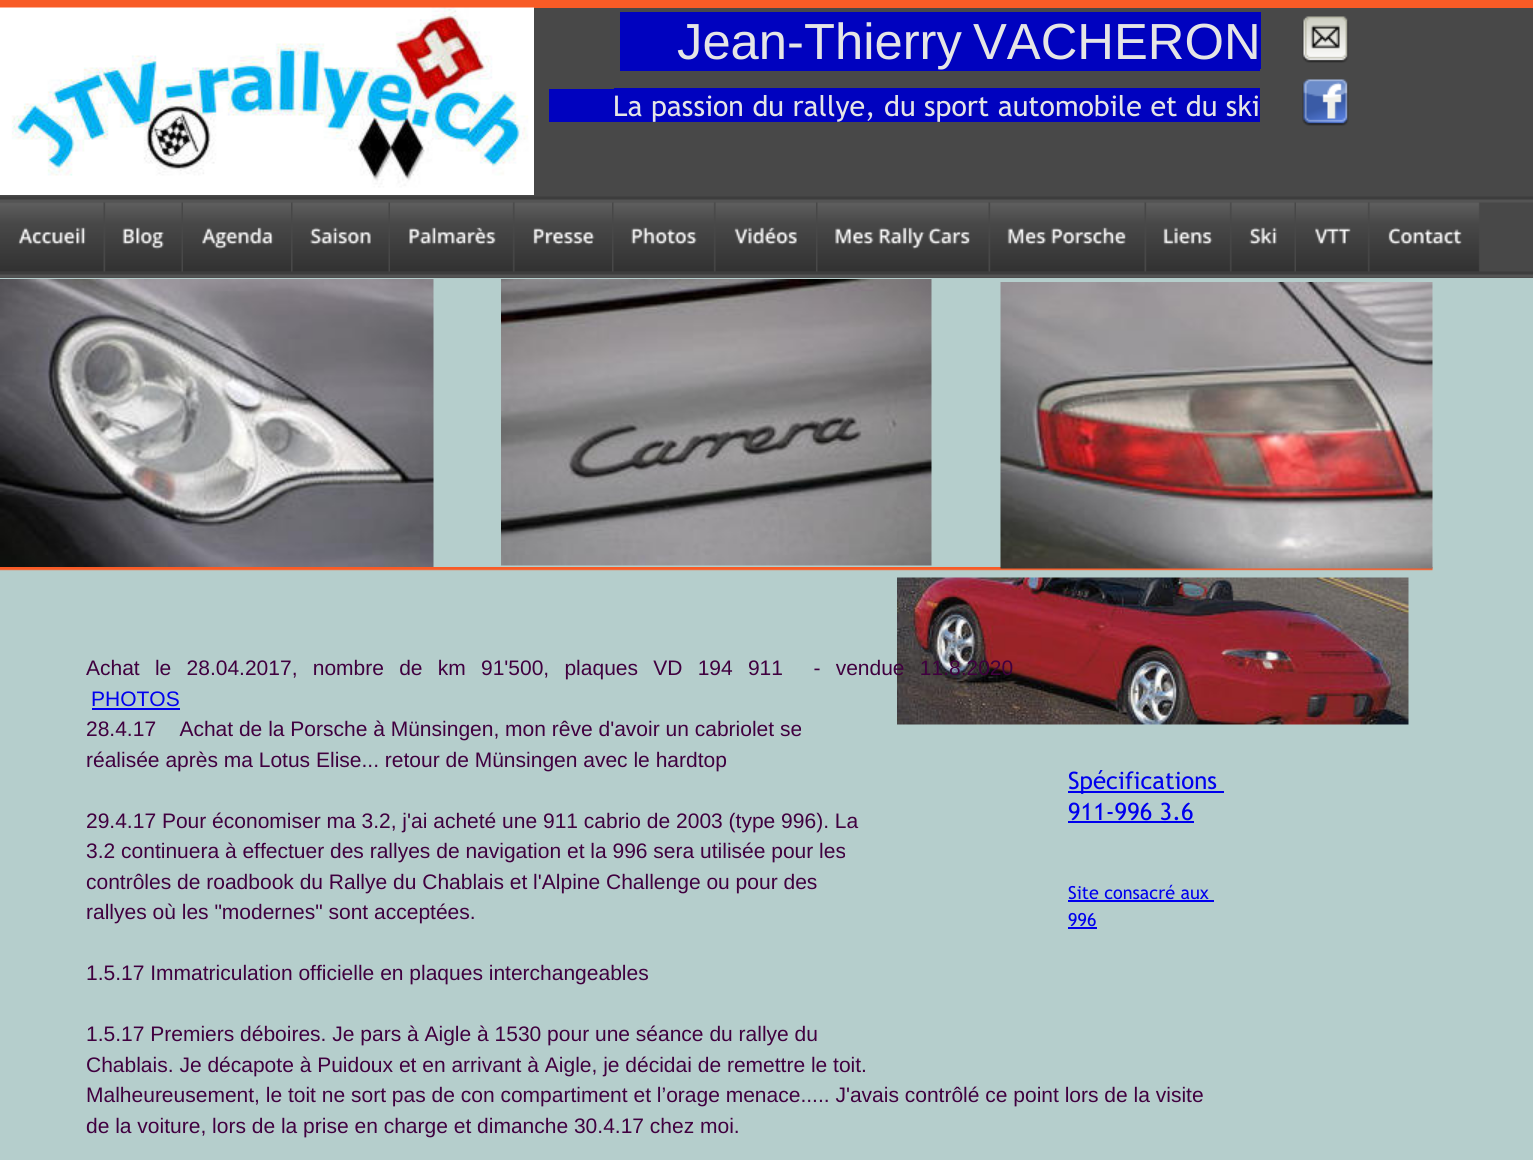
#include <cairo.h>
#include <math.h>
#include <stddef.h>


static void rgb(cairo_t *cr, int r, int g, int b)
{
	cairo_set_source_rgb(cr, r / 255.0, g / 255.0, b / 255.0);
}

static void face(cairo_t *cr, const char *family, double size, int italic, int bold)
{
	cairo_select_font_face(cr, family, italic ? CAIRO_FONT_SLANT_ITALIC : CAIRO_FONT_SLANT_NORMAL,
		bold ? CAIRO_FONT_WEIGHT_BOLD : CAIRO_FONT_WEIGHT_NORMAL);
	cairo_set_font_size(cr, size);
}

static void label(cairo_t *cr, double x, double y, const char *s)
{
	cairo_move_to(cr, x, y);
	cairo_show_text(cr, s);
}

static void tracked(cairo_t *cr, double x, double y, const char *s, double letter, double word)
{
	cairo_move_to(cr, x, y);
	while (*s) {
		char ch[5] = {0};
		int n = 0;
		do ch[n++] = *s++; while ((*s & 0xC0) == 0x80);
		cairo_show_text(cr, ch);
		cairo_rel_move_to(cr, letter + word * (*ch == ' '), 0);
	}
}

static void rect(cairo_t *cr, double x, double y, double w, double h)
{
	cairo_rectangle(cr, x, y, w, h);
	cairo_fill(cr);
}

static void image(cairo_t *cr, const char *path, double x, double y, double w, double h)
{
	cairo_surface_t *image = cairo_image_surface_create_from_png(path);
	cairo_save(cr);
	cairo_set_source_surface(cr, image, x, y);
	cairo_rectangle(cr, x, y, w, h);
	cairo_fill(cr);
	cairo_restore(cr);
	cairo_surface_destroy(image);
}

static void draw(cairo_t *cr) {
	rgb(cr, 181, 206, 204);
	cairo_paint(cr);
	rgb(cr, 248, 91, 38);
	rect(cr, 0, 0, 1533, 8);
	rgb(cr, 72, 72, 72);
	rect(cr, 0, 8, 1533, 270);
	image(cr, "image0.png", 0, 196, 1533, 7);
	image(cr, "image0.png", 0, 271, 1533, 7);
	image(cr, "image1.png", 0, 7, 534, 188);
	rgb(cr, 0, 2, 191);
	rect(cr, 620, 12, 640, 59);
	face(cr, "Liberation Sans", 50.75, 0, 0);
	rgb(cr, 229, 229, 229);
	tracked(cr, 677, 59, "Jean-Thierry VACHERON", 0, -3);
	rgb(cr, 0, 2, 191);
	rect(cr, 549, 89, 711, 33);
	face(cr, "Trebuchet MS", 28.5, 0, 0);
	rgb(cr, 229, 229, 229);
	label(cr, 613, 116, "La passion du rallye, du sport automobile et du ski");
	rgb(cr, 0, 2, 191);
	rect(cr, 1260, 12, 1, 57);
	rect(cr, 614, 88, 646, 1);
	image(cr, "image2.png", 1302, 16, 47, 47);
	image(cr, "image3.png", 1302, 79, 47, 47);
	image(cr, "image4.png", 0, 279, 434, 288);
	image(cr, "image5.png", 501, 279, 431, 287);
	image(cr, "image7.png", 0, 567, 1433, 4);
	image(cr, "image6.png", 1000, 282, 433, 287);
	image(cr, "image8.png", 897, 577, 512, 148);
	face(cr, "Liberation Sans", 21, 0, 0);
	rgb(cr, 64, 0, 63);
	tracked(cr, 86, 675, "Achat le 28.04.2017, nombre de km 91'500, plaques VD 194 911  - vendue 11.8.2020", 0, 9.4);
	rgb(cr, 0, 0, 238);
	label(cr, 91, 706, "PHOTOS");
	rect(cr, 92, 708, 88, 2);
	rgb(cr, 64, 0, 63);
	label(cr, 86, 736, "28.4.17    Achat de la Porsche à Münsingen, mon rêve d'avoir un cabriolet se");
	label(cr, 86, 767, "réalisée après ma Lotus Elise... retour de Münsingen avec le hardtop");
	label(cr, 86, 828, "29.4.17 Pour économiser ma 3.2, j'ai acheté une 911 cabrio de 2003 (type 996). La");
	label(cr, 86, 858, "3.2 continuera à effectuer des rallyes de navigation et la 996 sera utilisée pour les");
	label(cr, 86, 889, "contrôles de roadbook du Rallye du Chablais et l'Alpine Challenge ou pour des");
	label(cr, 86, 919, "rallyes où les \"modernes\" sont acceptées.");
	label(cr, 86, 980, "1.5.17 Immatriculation officielle en plaques interchangeables");
	label(cr, 86, 1041, "1.5.17 Premiers déboires. Je pars à Aigle à 1530 pour une séance du rallye du");
	label(cr, 86, 1072, "Chablais. Je décapote à Puidoux et en arrivant à Aigle, je décidai de remettre le toit.");
	label(cr, 86, 1102, "Malheureusement, le toit ne sort pas de con compartiment et l’orage menace..... J'avais contrôlé ce point lors de la visite");
	label(cr, 86, 1133, "de la voiture, lors de la prise en charge et dimanche 30.4.17 chez moi.");
	rgb(cr, 0, 0, 238);
	rect(cr, 1068, 791, 156, 2);
	face(cr, "Trebuchet MS", 24, 0, 0);
	label(cr, 1068, 789, "Spécifications");
	label(cr, 1068, 820, "911-996 3.6");
	rect(cr, 1068, 821, 126, 2);
	face(cr, "Trebuchet MS", 18, 0, 0);
	label(cr, 1068, 899, "Site consacré aux");
	rect(cr, 1068, 900, 146, 2);
	label(cr, 1068, 926, "996");
	rect(cr, 1068, 927, 29, 2);
	image(cr, "image9.png", 0, 202, 104, 70);
	image(cr, "image10.png", 105, 202, 77, 70);
	image(cr, "image11.png", 183, 202, 108, 70);
	image(cr, "image12.png", 292, 202, 97, 70);
	image(cr, "image13.png", 390, 202, 124, 70);
	image(cr, "image14.png", 514, 202, 98, 70);
	image(cr, "image15.png", 613, 202, 102, 70);
	image(cr, "image16.png", 715, 202, 101, 70);
	image(cr, "image17.png", 817, 202, 172, 70);
	image(cr, "image18.png", 990, 202, 155, 70);
	image(cr, "image19.png", 1146, 202, 85, 70);
	image(cr, "image20.png", 1231, 202, 64, 70);
	image(cr, "image21.png", 1296, 202, 73, 70);
	image(cr, "image22.png", 1369, 202, 111, 70);
}

int main(void) {
	cairo_surface_t *surface = cairo_image_surface_create(CAIRO_FORMAT_RGB24, 1533, 1160);
	cairo_t *cr = cairo_create(surface);
	cairo_font_options_t *options = cairo_font_options_create();
	cairo_font_options_set_hint_metrics(options, CAIRO_HINT_METRICS_OFF);
	cairo_font_options_set_hint_style(options, CAIRO_HINT_STYLE_NONE);
	cairo_set_font_options(cr, options);
	cairo_set_miter_limit(cr, 4);
	draw(cr);
	cairo_surface_write_to_png(surface, "render.png");
	cairo_font_options_destroy(options);
	cairo_destroy(cr);
	cairo_surface_destroy(surface);
	return 0;
}
